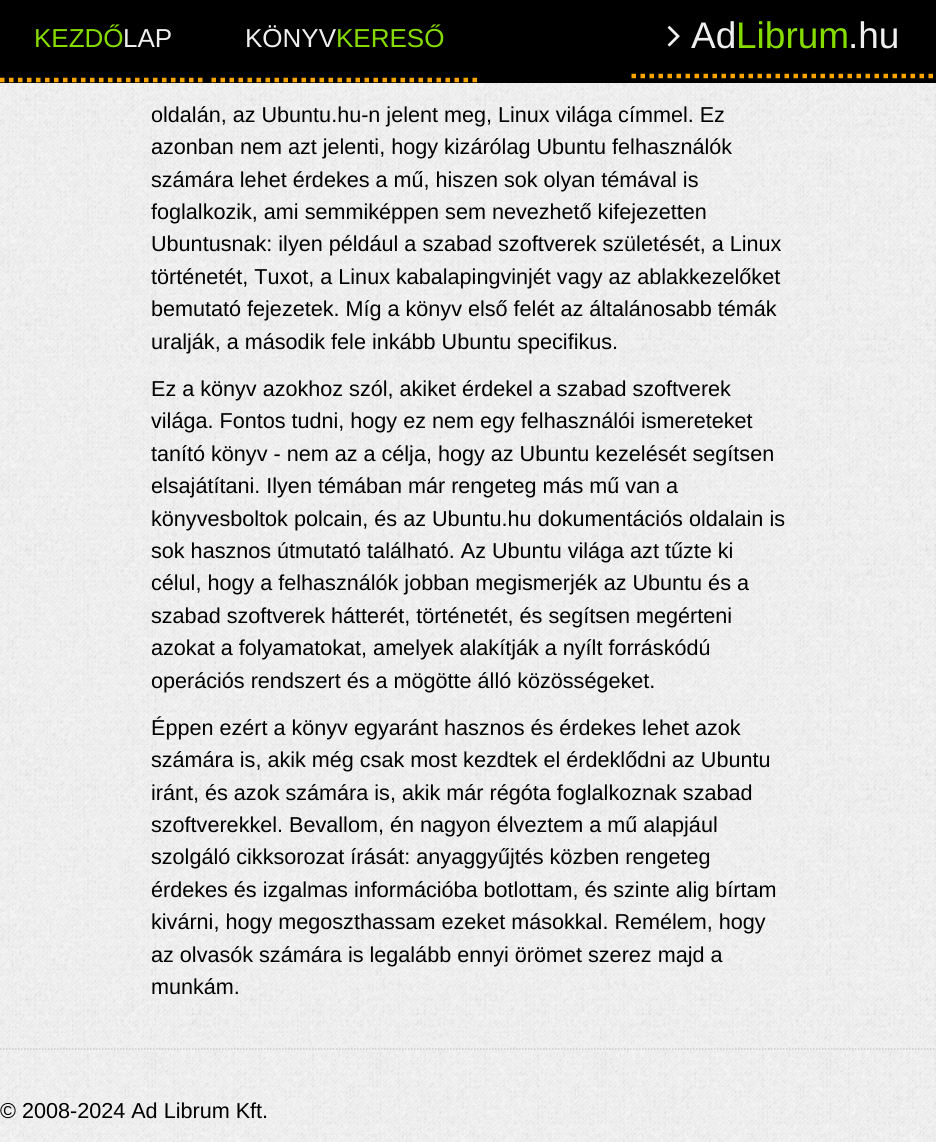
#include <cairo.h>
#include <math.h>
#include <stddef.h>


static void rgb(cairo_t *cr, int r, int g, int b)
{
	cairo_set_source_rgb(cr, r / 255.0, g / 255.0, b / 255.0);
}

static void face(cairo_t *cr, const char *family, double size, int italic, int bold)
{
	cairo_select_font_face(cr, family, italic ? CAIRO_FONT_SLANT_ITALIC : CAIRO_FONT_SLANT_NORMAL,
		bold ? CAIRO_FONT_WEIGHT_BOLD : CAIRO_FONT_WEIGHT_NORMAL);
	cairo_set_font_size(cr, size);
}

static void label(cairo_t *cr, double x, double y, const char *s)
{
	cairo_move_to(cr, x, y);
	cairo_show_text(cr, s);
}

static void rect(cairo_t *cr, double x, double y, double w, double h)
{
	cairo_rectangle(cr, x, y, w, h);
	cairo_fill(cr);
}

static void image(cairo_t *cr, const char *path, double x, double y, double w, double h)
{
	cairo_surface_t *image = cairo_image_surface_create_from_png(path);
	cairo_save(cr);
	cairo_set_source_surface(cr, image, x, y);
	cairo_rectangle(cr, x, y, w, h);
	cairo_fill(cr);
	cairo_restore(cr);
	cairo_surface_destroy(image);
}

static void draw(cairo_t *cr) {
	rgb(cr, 255, 255, 255);
	cairo_paint(cr);
	image(cr, "image0.png", 0, 83, 936, 1059);
	rgb(cr, 0, 0, 0);
	rect(cr, 0, 0, 936, 83);
	cairo_new_path(cr);
	cairo_move_to(cr, 0, 80);
	cairo_line_to(cr, 205.5, 80);
	rgb(cr, 255, 165, 0);
	cairo_set_line_width(cr, 4.5);
	cairo_set_dash(cr, (double[]){4.5, 4.5}, 2, 0);
	cairo_stroke(cr);
	face(cr, "Arimo", 26, 0, 0);
	rgb(cr, 134, 220, 0);
	label(cr, 34, 47, "KEZDŐ");
	rgb(cr, 239, 239, 239);
	label(cr, 123, 47, "LAP");
	cairo_new_path(cr);
	cairo_move_to(cr, 211.5, 80);
	cairo_line_to(cr, 477, 80);
	rgb(cr, 255, 165, 0);
	cairo_stroke(cr);
	rgb(cr, 239, 239, 239);
	label(cr, 245, 47, "KÖNYV");
	rgb(cr, 134, 220, 0);
	label(cr, 336, 47, "KERESŐ");
	cairo_new_path(cr);
	cairo_move_to(cr, 631.5, 76);
	cairo_line_to(cr, 936, 76);
	rgb(cr, 255, 165, 0);
	cairo_stroke(cr);
	image(cr, "image1.png", 667, 26, 13, 21);
	face(cr, "Arimo", 37, 0, 0);
	rgb(cr, 239, 239, 239);
	label(cr, 691, 48, "Ad");
	rgb(cr, 134, 220, 0);
	label(cr, 736, 48, "Librum");
	rgb(cr, 239, 239, 239);
	label(cr, 848, 48, ".hu");
	face(cr, "Arimo", 21.6, 0, 0);
	rgb(cr, 0, 0, 0);
	label(cr, 151, 122, "oldalán, az Ubuntu.hu-n jelent meg, Linux világa címmel. Ez");
	label(cr, 151, 154, "azonban nem azt jelenti, hogy kizárólag Ubuntu felhasználók");
	label(cr, 151, 187, "számára lehet érdekes a mű, hiszen sok olyan témával is");
	label(cr, 151, 219, "foglalkozik, ami semmiképpen sem nevezhető kifejezetten");
	label(cr, 151, 251, "Ubuntusnak: ilyen például a szabad szoftverek születését, a Linux");
	label(cr, 151, 284, "történetét, Tuxot, a Linux kabalapingvinjét vagy az ablakkezelőket");
	label(cr, 151, 316, "bemutató fejezetek. Míg a könyv első felét az általánosabb témák");
	label(cr, 151, 349, "uralják, a második fele inkább Ubuntu specifikus.");
	label(cr, 151, 396, "Ez a könyv azokhoz szól, akiket érdekel a szabad szoftverek");
	label(cr, 151, 428, "világa. Fontos tudni, hogy ez nem egy felhasználói ismereteket");
	label(cr, 151, 461, "tanító könyv - nem az a célja, hogy az Ubuntu kezelését segítsen");
	label(cr, 151, 493, "elsajátítani. Ilyen témában már rengeteg más mű van a");
	label(cr, 151, 526, "könyvesboltok polcain, és az Ubuntu.hu dokumentációs oldalain is");
	label(cr, 151, 558, "sok hasznos útmutató található. Az Ubuntu világa azt tűzte ki");
	label(cr, 151, 590, "célul, hogy a felhasználók jobban megismerjék az Ubuntu és a");
	label(cr, 151, 623, "szabad szoftverek hátterét, történetét, és segítsen megérteni");
	label(cr, 151, 655, "azokat a folyamatokat, amelyek alakítják a nyílt forráskódú");
	label(cr, 151, 688, "operációs rendszert és a mögötte álló közösségeket.");
	label(cr, 151, 735, "Éppen ezért a könyv egyaránt hasznos és érdekes lehet azok");
	label(cr, 151, 767, "számára is, akik még csak most kezdtek el érdeklődni az Ubuntu");
	label(cr, 151, 800, "iránt, és azok számára is, akik már régóta foglalkoznak szabad");
	label(cr, 151, 832, "szoftverekkel. Bevallom, én nagyon élveztem a mű alapjául");
	label(cr, 151, 864, "szolgáló cikksorozat írását: anyaggyűjtés közben rengeteg");
	label(cr, 151, 897, "érdekes és izgalmas információba botlottam, és szinte alig bírtam");
	label(cr, 151, 929, "kivárni, hogy megoszthassam ezeket másokkal. Remélem, hogy");
	label(cr, 151, 962, "az olvasók számára is legalább ennyi örömet szerez majd a");
	label(cr, 151, 994, "munkám.");
	cairo_new_path(cr);
	cairo_move_to(cr, 0, 1049);
	cairo_line_to(cr, 936, 1049);
	rgb(cr, 204, 204, 204);
	cairo_set_line_width(cr, 1.5);
	cairo_set_dash(cr, (double[]){1.5, 1.5}, 2, 0);
	cairo_stroke(cr);
	rgb(cr, 0, 0, 0);
	label(cr, 0, 1118, "© 2008-2024 Ad Librum Kft.");
}

int main(void) {
	cairo_surface_t *surface = cairo_image_surface_create(CAIRO_FORMAT_RGB24, 936, 1142);
	cairo_t *cr = cairo_create(surface);
	cairo_font_options_t *options = cairo_font_options_create();
	cairo_font_options_set_hint_metrics(options, CAIRO_HINT_METRICS_OFF);
	cairo_font_options_set_hint_style(options, CAIRO_HINT_STYLE_NONE);
	cairo_set_font_options(cr, options);
	cairo_set_miter_limit(cr, 4);
	draw(cr);
	cairo_surface_write_to_png(surface, "render.png");
	cairo_font_options_destroy(options);
	cairo_destroy(cr);
	cairo_surface_destroy(surface);
	return 0;
}
